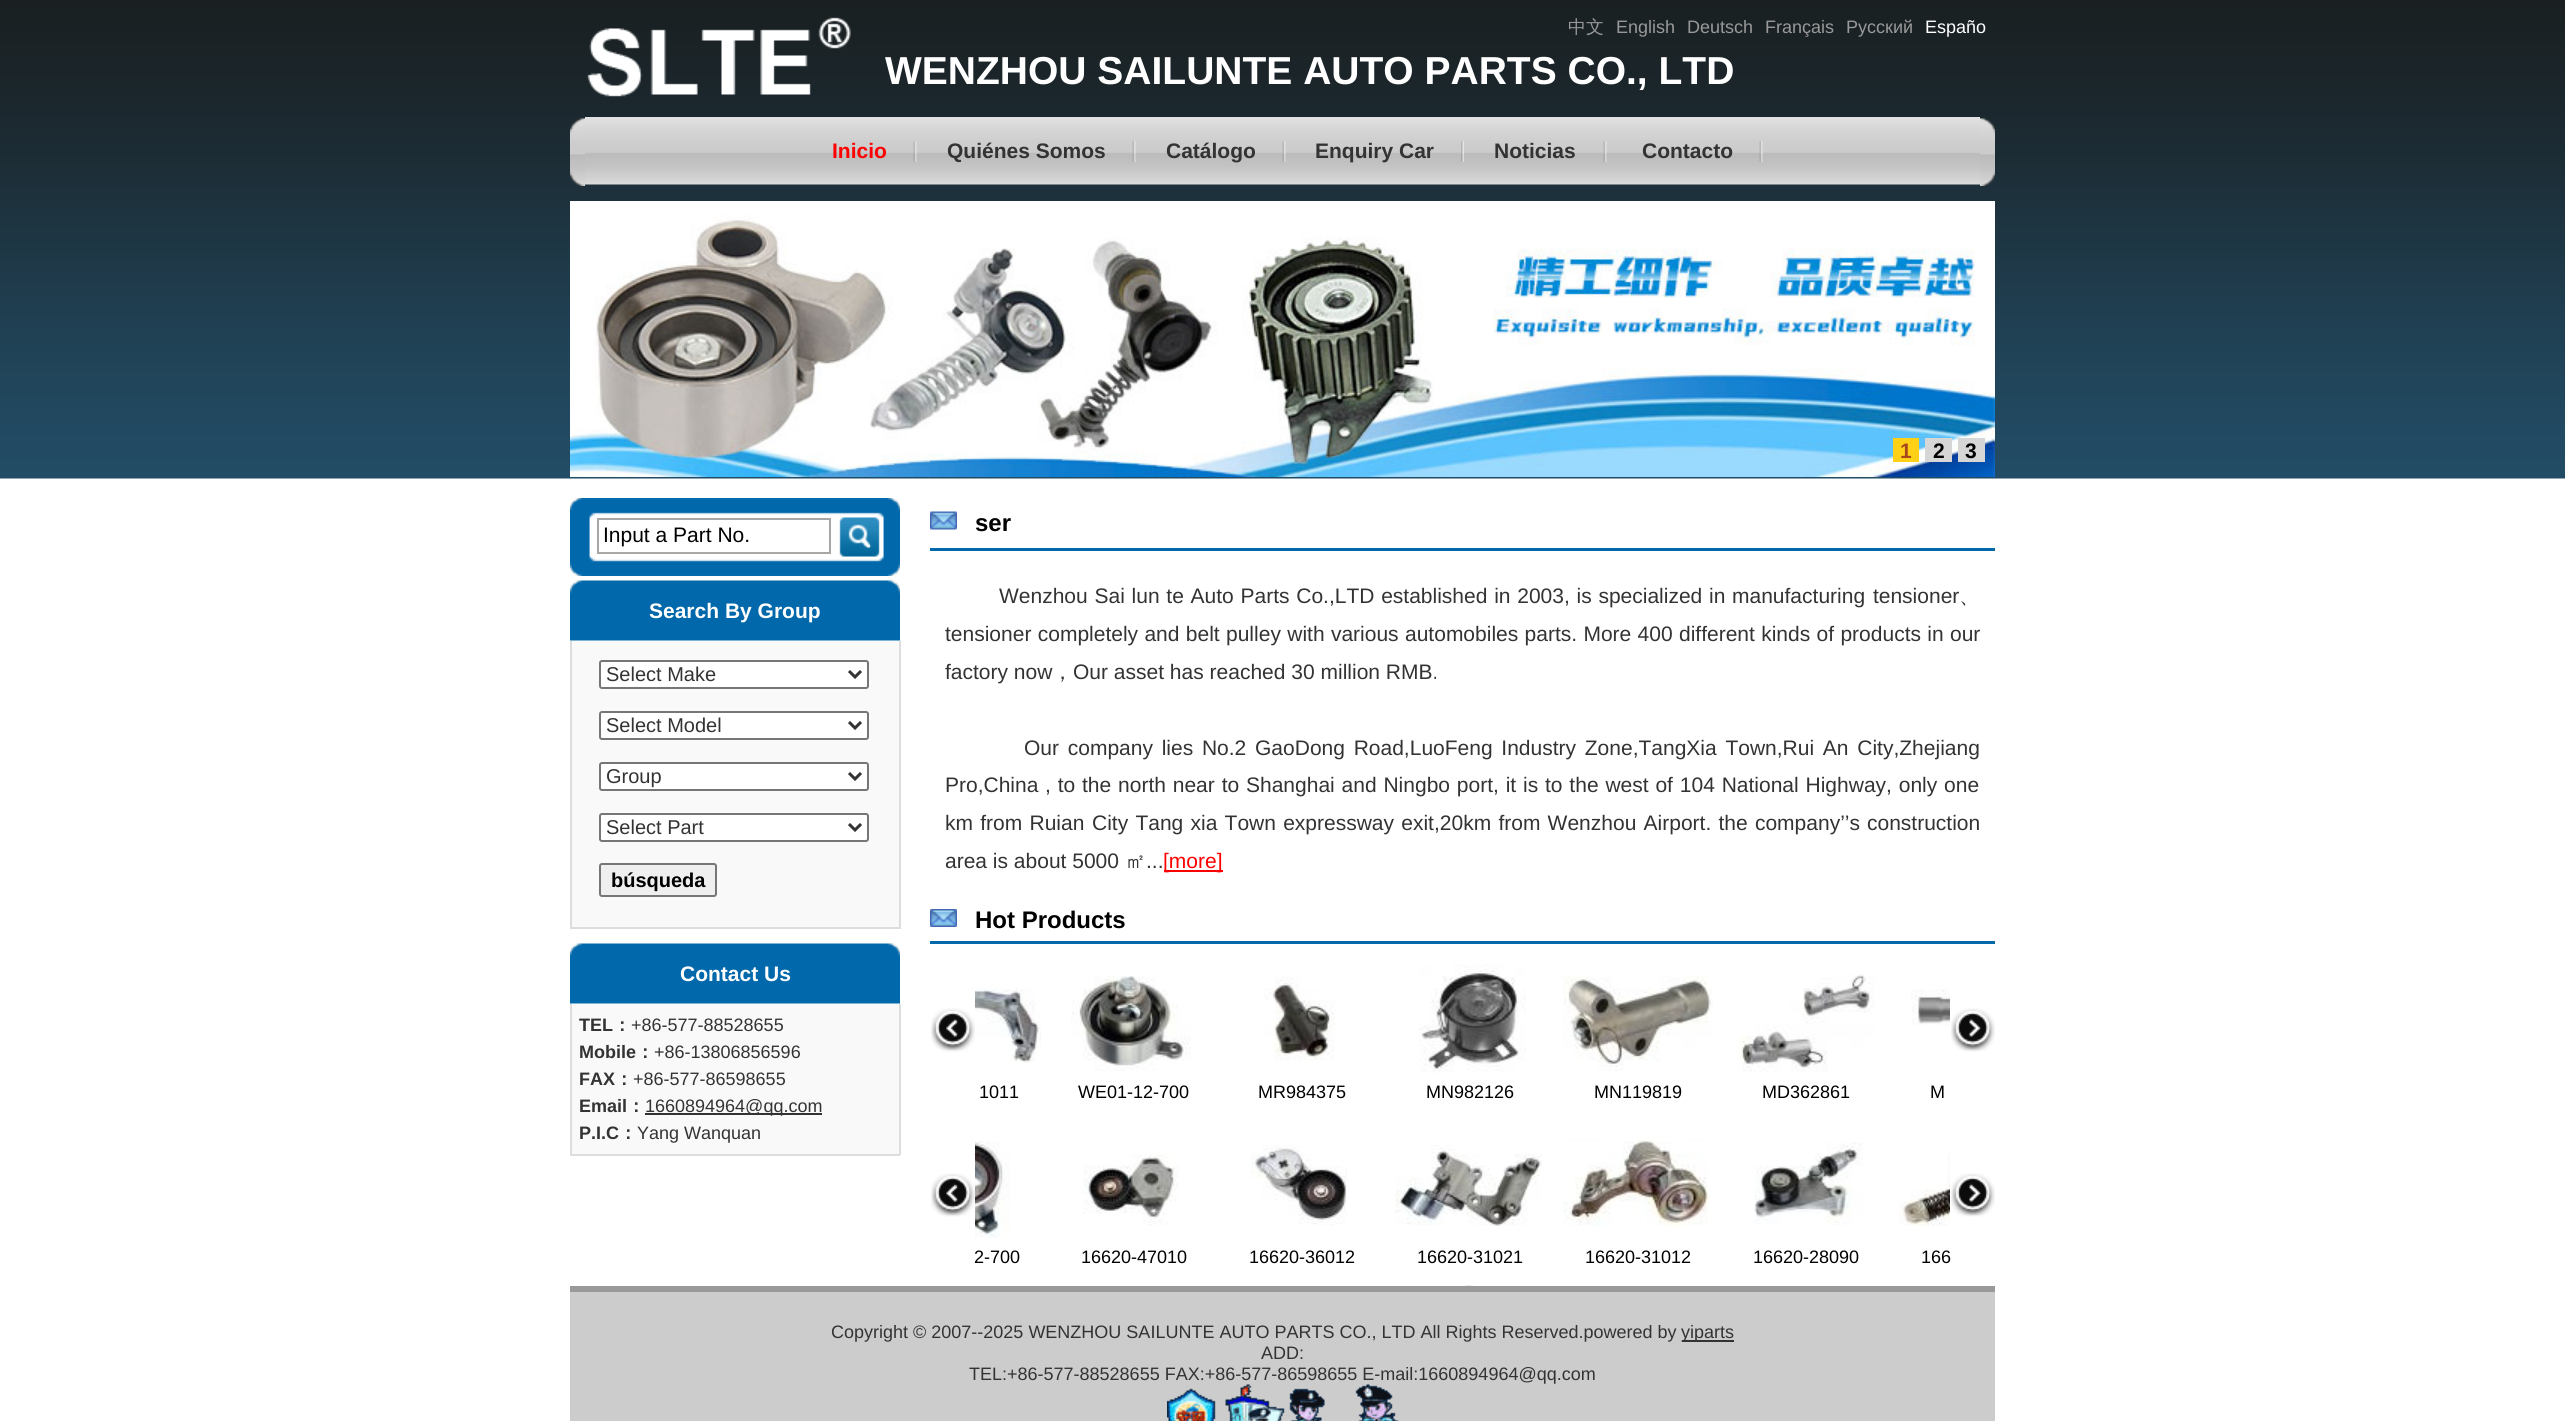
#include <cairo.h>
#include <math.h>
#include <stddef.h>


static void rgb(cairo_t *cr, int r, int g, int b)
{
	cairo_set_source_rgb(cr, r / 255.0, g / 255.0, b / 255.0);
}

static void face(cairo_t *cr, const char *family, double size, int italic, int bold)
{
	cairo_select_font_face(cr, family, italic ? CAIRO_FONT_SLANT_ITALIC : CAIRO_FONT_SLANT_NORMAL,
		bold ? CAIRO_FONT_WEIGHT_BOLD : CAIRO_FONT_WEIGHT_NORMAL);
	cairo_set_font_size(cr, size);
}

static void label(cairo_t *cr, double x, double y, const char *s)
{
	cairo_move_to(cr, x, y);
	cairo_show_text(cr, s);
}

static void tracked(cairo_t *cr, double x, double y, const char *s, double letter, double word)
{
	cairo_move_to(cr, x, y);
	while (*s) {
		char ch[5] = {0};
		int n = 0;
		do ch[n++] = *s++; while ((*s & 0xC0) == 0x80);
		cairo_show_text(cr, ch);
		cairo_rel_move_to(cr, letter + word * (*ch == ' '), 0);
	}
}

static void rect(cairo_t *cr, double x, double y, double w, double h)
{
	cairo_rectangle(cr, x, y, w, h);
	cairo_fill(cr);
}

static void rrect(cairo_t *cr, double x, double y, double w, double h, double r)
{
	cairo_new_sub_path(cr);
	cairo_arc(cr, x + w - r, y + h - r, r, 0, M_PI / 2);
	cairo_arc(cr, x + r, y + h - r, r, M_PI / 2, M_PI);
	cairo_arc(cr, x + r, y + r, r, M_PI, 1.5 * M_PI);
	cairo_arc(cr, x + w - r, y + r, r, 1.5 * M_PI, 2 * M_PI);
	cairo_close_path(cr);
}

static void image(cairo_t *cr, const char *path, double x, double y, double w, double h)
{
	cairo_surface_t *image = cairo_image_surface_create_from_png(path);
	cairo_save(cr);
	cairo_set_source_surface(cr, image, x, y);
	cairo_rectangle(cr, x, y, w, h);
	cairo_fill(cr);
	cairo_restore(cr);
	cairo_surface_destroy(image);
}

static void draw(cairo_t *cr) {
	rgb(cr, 255, 255, 255);
	cairo_paint(cr);
	image(cr, "image0.png", 0, 0, 2565, 479);
	image(cr, "image1.png", 587, 17, 264, 80);
	face(cr, "WenQuanYi Zen Hei Medium", 18, 0, 0);
	rgb(cr, 153, 153, 153);
	label(cr, 1568, 33, "中文");
	face(cr, "Liberation Sans", 18, 0, 0);
	label(cr, 1616, 33, "English");
	label(cr, 1687, 33, "Deutsch");
	label(cr, 1765, 33, "Français");
	label(cr, 1846, 33, "Русский");
	rgb(cr, 255, 255, 255);
	label(cr, 1925, 33, "Españo");
	face(cr, "Liberation Sans", 39, 0, 1);
	label(cr, 885, 84, "WENZHOU SAILUNTE AUTO PARTS CO., LTD");
	image(cr, "image2.png", 570, 118, 15, 68);
	image(cr, "image3.png", 1980, 118, 15, 68);
	image(cr, "image4.png", 585, 117, 1395, 68);
	face(cr, "Liberation Sans", 21, 0, 1);
	rgb(cr, 255, 0, 0);
	label(cr, 832, 158, "Inicio");
	image(cr, "image5.png", 913, 141, 4, 21);
	rgb(cr, 51, 51, 51);
	label(cr, 947, 158, "Quiénes Somos");
	image(cr, "image5.png", 1132, 141, 4, 21);
	label(cr, 1166, 158, "Catálogo");
	image(cr, "image5.png", 1282, 141, 4, 21);
	label(cr, 1315, 158, "Enquiry Car");
	image(cr, "image6.png", 1461, 141, 3, 21);
	label(cr, 1494, 158, "Noticias");
	image(cr, "image5.png", 1603, 141, 4, 21);
	label(cr, 1642, 158, "Contacto");
	image(cr, "image5.png", 1759, 141, 4, 21);
	image(cr, "image7.png", 570, 201, 1425, 276);
	rgb(cr, 255, 209, 22);
	rect(cr, 1893, 438, 26, 24);
	rgb(cr, 168, 71, 28);
	label(cr, 1900, 458, "1");
	rgb(cr, 215, 214, 215);
	rect(cr, 1925, 438, 27, 24);
	rgb(cr, 0, 0, 0);
	label(cr, 1933, 458, "2");
	rgb(cr, 215, 214, 215);
	rect(cr, 1958, 438, 27, 24);
	rgb(cr, 0, 0, 0);
	label(cr, 1965, 458, "3");
	image(cr, "image8.png", 570, 498, 330, 78);
	cairo_rectangle(cr, 598, 519, 232, 34);
	rgb(cr, 167, 167, 167);
	cairo_stroke(cr);
	face(cr, "Liberation Sans", 21, 0, 0);
	rgb(cr, 0, 0, 0);
	label(cr, 603, 542, "Input a Part No.");
	image(cr, "image9.png", 570, 580, 330, 61);
	face(cr, "Liberation Sans", 21, 0, 1);
	rgb(cr, 255, 255, 255);
	label(cr, 649, 618, "Search By Group");
	rgb(cr, 249, 249, 249);
	rect(cr, 572, 641, 327, 286);
	rgb(cr, 221, 221, 221);
	rect(cr, 899, 641, 2, 288);
	rect(cr, 570, 927, 330, 2);
	rect(cr, 570, 641, 2, 288);
	rgb(cr, 255, 255, 255);
	rrect(cr, 600, 661, 268, 27, 2);
	cairo_fill_preserve(cr);
	rgb(cr, 118, 118, 118);
	cairo_stroke(cr);
	cairo_new_path(cr);
	cairo_move_to(cr, 849, 671);
	cairo_line_to(cr, 855, 677);
	cairo_line_to(cr, 861, 671);
	rgb(cr, 51, 51, 51);
	cairo_set_line_width(cr, 3);
	cairo_stroke(cr);
	face(cr, "Liberation Sans", 20, 0, 0);
	label(cr, 606, 681, "Select Make");
	rgb(cr, 255, 255, 255);
	rrect(cr, 600, 712, 268, 27, 2);
	cairo_fill_preserve(cr);
	rgb(cr, 118, 118, 118);
	cairo_set_line_width(cr, 2);
	cairo_stroke(cr);
	cairo_new_path(cr);
	cairo_move_to(cr, 849, 722);
	cairo_line_to(cr, 855, 728);
	cairo_line_to(cr, 861, 722);
	rgb(cr, 51, 51, 51);
	cairo_set_line_width(cr, 3);
	cairo_stroke(cr);
	label(cr, 606, 732, "Select Model");
	rgb(cr, 255, 255, 255);
	rrect(cr, 600, 763, 268, 27, 2);
	cairo_fill_preserve(cr);
	rgb(cr, 118, 118, 118);
	cairo_set_line_width(cr, 2);
	cairo_stroke(cr);
	cairo_new_path(cr);
	cairo_move_to(cr, 849, 773);
	cairo_line_to(cr, 855, 779);
	cairo_line_to(cr, 861, 773);
	rgb(cr, 51, 51, 51);
	cairo_set_line_width(cr, 3);
	cairo_stroke(cr);
	label(cr, 606, 783, "Group");
	rgb(cr, 255, 255, 255);
	rrect(cr, 600, 814, 268, 27, 2);
	cairo_fill_preserve(cr);
	rgb(cr, 118, 118, 118);
	cairo_set_line_width(cr, 2);
	cairo_stroke(cr);
	cairo_new_path(cr);
	cairo_move_to(cr, 849, 824);
	cairo_line_to(cr, 855, 830);
	cairo_line_to(cr, 861, 824);
	rgb(cr, 51, 51, 51);
	cairo_set_line_width(cr, 3);
	cairo_stroke(cr);
	label(cr, 606, 834, "Select Part");
	rgb(cr, 239, 239, 239);
	rrect(cr, 600, 864, 116, 32, 2);
	cairo_fill_preserve(cr);
	rgb(cr, 118, 118, 118);
	cairo_set_line_width(cr, 2);
	cairo_stroke(cr);
	face(cr, "Liberation Sans", 20, 0, 1);
	rgb(cr, 0, 0, 0);
	label(cr, 611, 887, "búsqueda");
	image(cr, "image9.png", 570, 943, 330, 61);
	face(cr, "Liberation Sans", 21, 0, 1);
	rgb(cr, 255, 255, 255);
	label(cr, 680, 981, "Contact Us");
	rgb(cr, 249, 249, 249);
	rect(cr, 572, 1004, 327, 150);
	rgb(cr, 221, 221, 221);
	rect(cr, 899, 1004, 2, 151);
	rect(cr, 570, 1154, 330, 2);
	rect(cr, 570, 1004, 2, 151);
	face(cr, "Liberation Sans", 18, 0, 1);
	rgb(cr, 51, 51, 51);
	label(cr, 579, 1031, "TEL");
	face(cr, "WenQuanYi Zen Hei", 18, 0, 1);
	label(cr, 613, 1031, "：");
	face(cr, "Liberation Sans", 18, 0, 0);
	label(cr, 631, 1031, "+86-577-88528655");
	face(cr, "Liberation Sans", 18, 0, 1);
	label(cr, 579, 1058, "Mobile");
	face(cr, "WenQuanYi Zen Hei", 18, 0, 1);
	label(cr, 636, 1058, "：");
	face(cr, "Liberation Sans", 18, 0, 0);
	label(cr, 654, 1058, "+86-13806856596");
	face(cr, "Liberation Sans", 18, 0, 1);
	label(cr, 579, 1085, "FAX");
	face(cr, "WenQuanYi Zen Hei", 18, 0, 1);
	label(cr, 615, 1085, "：");
	face(cr, "Liberation Sans", 18, 0, 0);
	label(cr, 633, 1085, "+86-577-86598655");
	face(cr, "Liberation Sans", 18, 0, 1);
	label(cr, 579, 1112, "Email");
	face(cr, "WenQuanYi Zen Hei", 18, 0, 1);
	label(cr, 627, 1112, "：");
	rect(cr, 645, 1113, 177, 2);
	face(cr, "Liberation Sans", 18, 0, 0);
	label(cr, 645, 1112, "1660894964@qq.com");
	face(cr, "Liberation Sans", 18, 0, 1);
	label(cr, 579, 1139, "P.I.C");
	face(cr, "WenQuanYi Zen Hei", 18, 0, 1);
	label(cr, 619, 1139, "：");
	face(cr, "Liberation Sans", 18, 0, 0);
	label(cr, 637, 1139, "Yang Wanquan");
	image(cr, "image10.png", 930, 511, 27, 19);
	rgb(cr, 0, 104, 171);
	rect(cr, 930, 548, 1065, 3);
	face(cr, "Liberation Sans", 24, 0, 1);
	rgb(cr, 0, 0, 0);
	label(cr, 975, 531, "ser");
	face(cr, "Liberation Sans", 21, 0, 0);
	rgb(cr, 51, 51, 51);
	tracked(cr, 999, 603, "Wenzhou Sai lun te Auto Parts Co.,LTD established in 2003, is specialized in", 0, 0.9);
	tracked(cr, 1732, 603, "manufacturing tensioner", 0, 2);
	face(cr, "WenQuanYi Zen Hei Medium", 21, 0, 0);
	label(cr, 1959, 603, "、");
	face(cr, "Liberation Sans", 21, 0, 0);
	tracked(cr, 945, 641, "tensioner completely and belt pulley with various", 0, 0.5);
	tracked(cr, 1405, 641, "automobiles parts. More 400 different kinds of products in our", 0, 0.5);
	label(cr, 945, 679, "factory now");
	face(cr, "WenQuanYi Zen Hei Medium", 21, 0, 0);
	label(cr, 1052, 679, "，");
	face(cr, "Liberation Sans", 21, 0, 0);
	label(cr, 1073, 679, "Our asset has reached 30 million RMB.");
	tracked(cr, 1024, 755, "Our company lies No.2 GaoDong Road,LuoFeng Industry Zone,TangXia Town,Rui An City,Zhejiang", 0, 2.9);
	label(cr, 945, 792, "Pro,China");
	tracked(cr, 1045, 792, ", to the north near to Shanghai and Ningbo port, it is to the west of 104 National Highway, only one", 0, 1);
	tracked(cr, 945, 830, "km from Ruian", 0, 1.4);
	tracked(cr, 1092, 830, "City Tang xia Town expressway exit,20km from Wenzhou Airport. the company’’s", 0, 1.4);
	label(cr, 1867, 830, "construction");
	label(cr, 945, 868, "area is about 5000");
	face(cr, "WenQuanYi Zen Hei Medium", 21, 0, 0);
	label(cr, 1125, 868, "㎡");
	face(cr, "Liberation Sans", 21, 0, 0);
	label(cr, 1146, 868, "...");
	rgb(cr, 255, 0, 0);
	rect(cr, 1164, 870, 59, 2);
	label(cr, 1163, 868, "[more]");
	image(cr, "image11.png", 930, 909, 27, 18);
	rgb(cr, 0, 104, 171);
	rect(cr, 930, 941, 1065, 3);
	face(cr, "Liberation Sans", 24, 0, 1);
	rgb(cr, 0, 0, 0);
	label(cr, 975, 928, "Hot Products");
	image(cr, "image12.png", 931, 1008, 44, 44);
	image(cr, "image13.png", 1951, 1008, 44, 44);
	image(cr, "image14.png", 975, 988, 66, 75);
	face(cr, "Liberation Sans", 18, 0, 0);
	label(cr, 979, 1098, "1011");
	image(cr, "image15.png", 1071, 976, 120, 95);
	label(cr, 1078, 1098, "WE01-12-700");
	image(cr, "image16.png", 1263, 976, 72, 85);
	label(cr, 1258, 1098, "MR984375");
	image(cr, "image17.png", 1419, 964, 107, 109);
	label(cr, 1426, 1098, "MN982126");
	image(cr, "image18.png", 1563, 976, 150, 95);
	label(cr, 1594, 1098, "MN119819");
	image(cr, "image19.png", 1739, 974, 136, 98);
	label(cr, 1762, 1098, "MD362861");
	image(cr, "image20.png", 1911, 989, 39, 37);
	label(cr, 1930, 1098, "M");
	image(cr, "image12.png", 931, 1173, 44, 44);
	image(cr, "image13.png", 1951, 1173, 44, 44);
	image(cr, "image21.png", 975, 1141, 35, 97);
	label(cr, 974, 1263, "2-700");
	image(cr, "image22.png", 1083, 1154, 96, 72);
	label(cr, 1081, 1263, "16620-47010");
	image(cr, "image23.png", 1251, 1145, 96, 81);
	label(cr, 1249, 1263, "16620-36012");
	image(cr, "image24.png", 1395, 1145, 147, 81);
	label(cr, 1417, 1263, "16620-31021");
	image(cr, "image25.png", 1563, 1139, 147, 89);
	label(cr, 1585, 1263, "16620-31012");
	image(cr, "image26.png", 1754, 1142, 109, 83);
	label(cr, 1753, 1263, "16620-28090");
	image(cr, "image27.png", 1899, 1151, 51, 75);
	label(cr, 1921, 1263, "166");
	image(cr, "image28.png", 1463, 1285, 11, 1);
	rgb(cr, 204, 204, 204);
	rect(cr, 570, 1292, 1425, 129);
	rgb(cr, 153, 153, 153);
	rect(cr, 570, 1286, 1425, 6);
	rgb(cr, 51, 51, 51);
	label(cr, 831, 1338, "Copyright © 2007--2025 WENZHOU SAILUNTE AUTO PARTS CO., LTD All Rights Reserved.powered by");
	rect(cr, 1682, 1340, 52, 2);
	label(cr, 1681, 1338, "yiparts");
	label(cr, 1261, 1359, "ADD:");
	label(cr, 969, 1380, "TEL:+86-577-88528655 FAX:+86-577-86598655 E-mail:1660894964@qq.com");
	image(cr, "image29.png", 1167, 1384, 232, 37);
}

int main(void) {
	cairo_surface_t *surface = cairo_image_surface_create(CAIRO_FORMAT_RGB24, 2565, 1421);
	cairo_t *cr = cairo_create(surface);
	cairo_font_options_t *options = cairo_font_options_create();
	cairo_font_options_set_hint_metrics(options, CAIRO_HINT_METRICS_OFF);
	cairo_font_options_set_hint_style(options, CAIRO_HINT_STYLE_NONE);
	cairo_set_font_options(cr, options);
	cairo_set_miter_limit(cr, 4);
	draw(cr);
	cairo_surface_write_to_png(surface, "render.png");
	cairo_font_options_destroy(options);
	cairo_destroy(cr);
	cairo_surface_destroy(surface);
	return 0;
}
